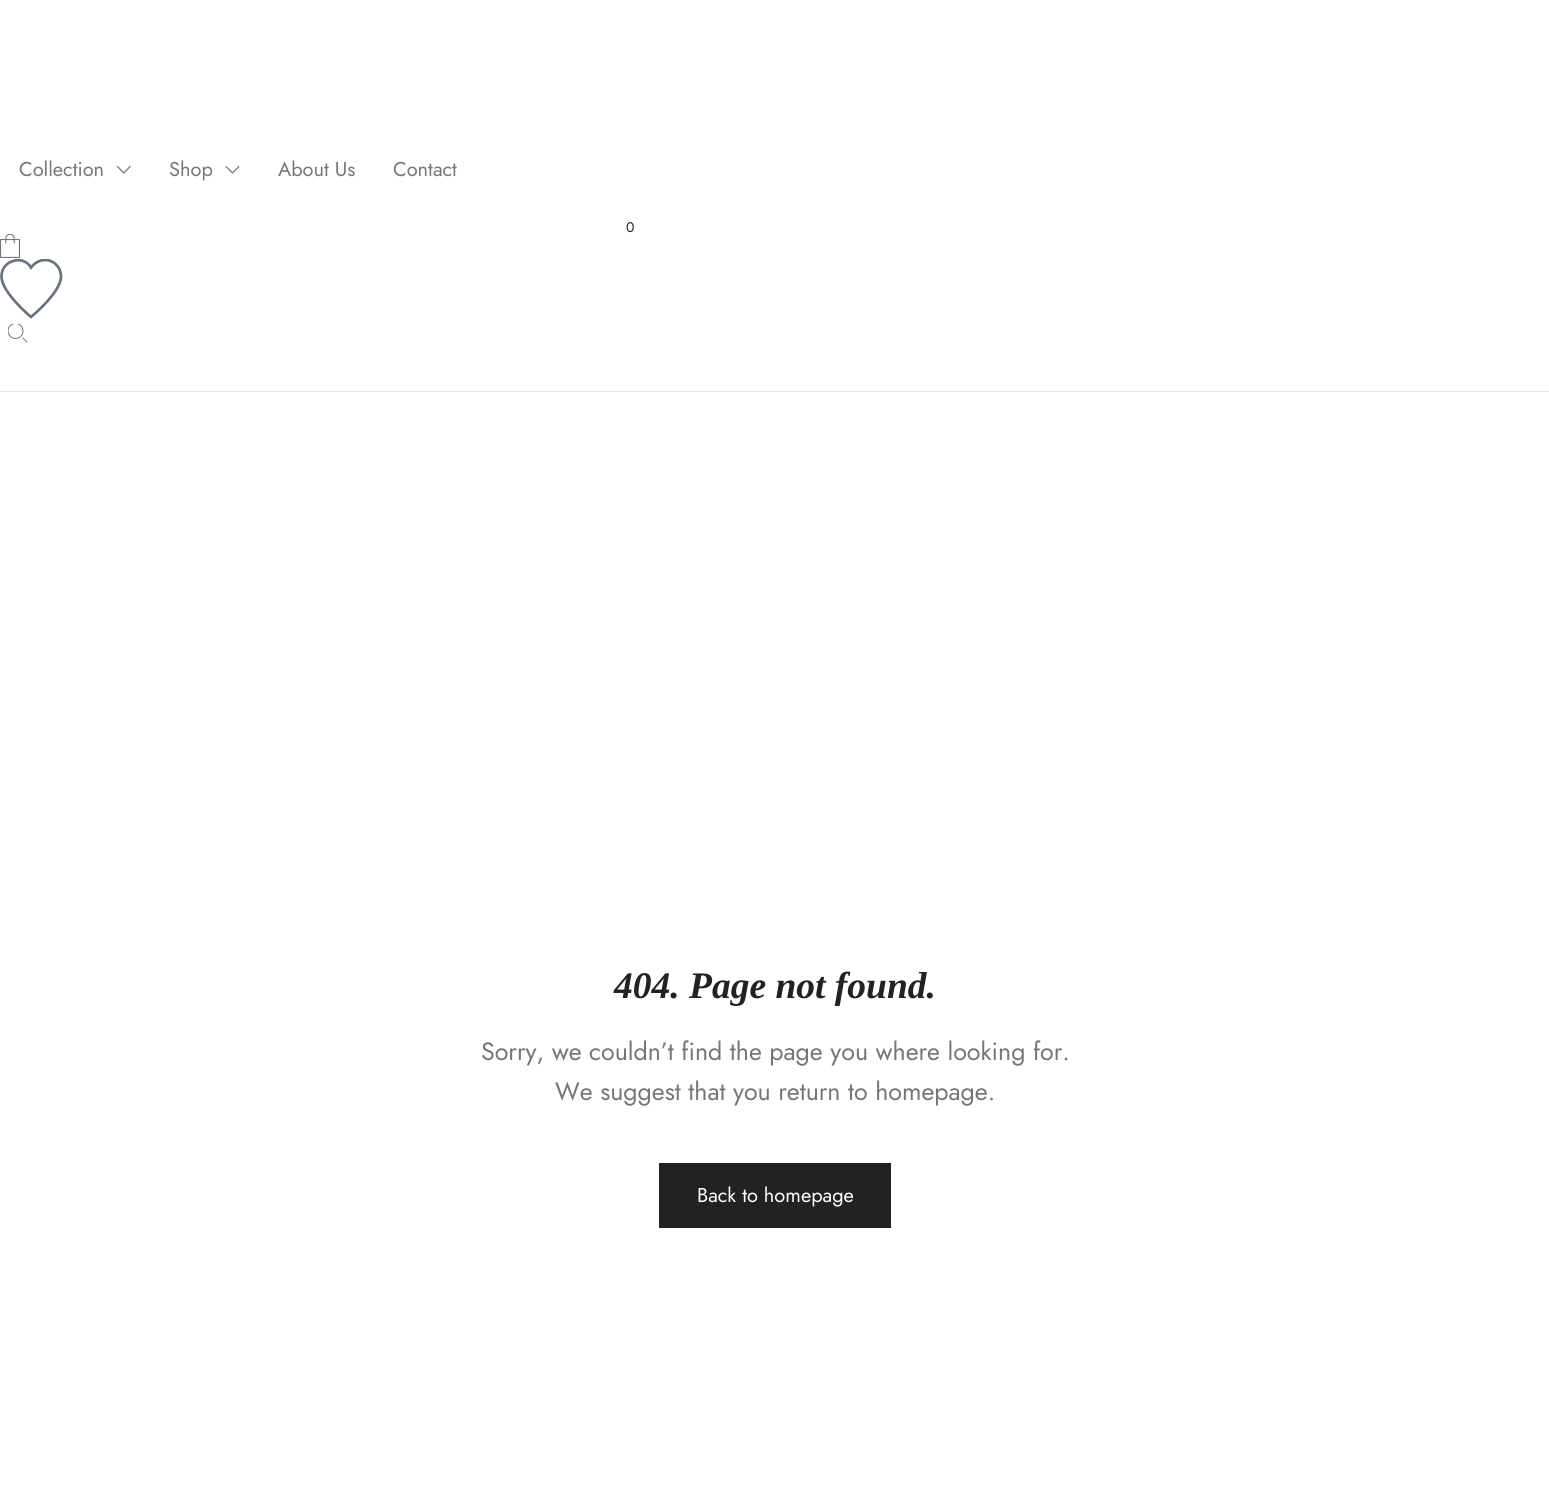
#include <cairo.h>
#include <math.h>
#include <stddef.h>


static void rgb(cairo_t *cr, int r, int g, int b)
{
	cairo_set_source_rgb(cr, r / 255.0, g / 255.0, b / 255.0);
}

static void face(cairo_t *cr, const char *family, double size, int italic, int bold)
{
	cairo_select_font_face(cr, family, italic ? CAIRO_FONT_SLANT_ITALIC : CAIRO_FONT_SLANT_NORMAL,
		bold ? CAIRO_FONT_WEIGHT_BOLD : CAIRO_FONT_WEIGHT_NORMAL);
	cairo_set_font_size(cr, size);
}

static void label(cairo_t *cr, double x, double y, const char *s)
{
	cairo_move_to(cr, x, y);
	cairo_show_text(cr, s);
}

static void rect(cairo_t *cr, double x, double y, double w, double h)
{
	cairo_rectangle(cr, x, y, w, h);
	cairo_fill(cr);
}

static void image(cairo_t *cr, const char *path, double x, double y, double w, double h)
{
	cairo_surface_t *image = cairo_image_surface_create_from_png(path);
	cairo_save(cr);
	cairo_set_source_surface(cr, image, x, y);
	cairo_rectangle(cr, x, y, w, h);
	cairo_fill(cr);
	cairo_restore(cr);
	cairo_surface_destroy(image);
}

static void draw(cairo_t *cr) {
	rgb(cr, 255, 255, 255);
	cairo_paint(cr);
	face(cr, "Jost", 20, 0, 0);
	rgb(cr, 118, 118, 118);
	label(cr, 19, 176, "Collection");
	image(cr, "image0.png", 116, 165, 15, 9);
	label(cr, 169, 176, "Shop");
	image(cr, "image1.png", 225, 165, 15, 9);
	label(cr, 278, 176, "About Us");
	label(cr, 393, 176, "Contact");
	face(cr, "Jost", 14, 0, 0);
	rgb(cr, 34, 34, 34);
	label(cr, 626, 232, "0");
	image(cr, "image2.png", 0, 234, 20, 24);
	cairo_save(cr);
	cairo_rectangle(cr, 0, 259, 63, 60);
	cairo_clip(cr);
	cairo_new_path(cr);
	cairo_move_to(cr, 45, 260);
	cairo_curve_to(cr, 39.5, 260, 34.5, 263, 31, 267.5);
	cairo_curve_to(cr, 27.5, 261.5, 20, 258.5, 13, 261);
	cairo_curve_to(cr, 6, 263, 1.5, 269, 1.5, 276.5);
	cairo_curve_to(cr, 1.5, 292.5, 31, 317, 31, 317);
	cairo_curve_to(cr, 31, 317, 61, 292.5, 61, 276.5);
	cairo_curve_to(cr, 61, 267.5, 54, 260, 45, 260);
	cairo_close_path(cr);
	rgb(cr, 105, 114, 125);
	cairo_set_line_width(cr, 2.7);
	cairo_set_line_cap(cr, CAIRO_LINE_CAP_SQUARE);
	cairo_stroke(cr);
	cairo_restore(cr);
	cairo_new_path(cr);
	cairo_move_to(cr, 27, 342);
	cairo_line_to(cr, 23, 338);
	rgb(cr, 118, 118, 118);
	cairo_set_line_width(cr, 1);
	cairo_set_line_cap(cr, CAIRO_LINE_CAP_ROUND);
	cairo_set_line_join(cr, CAIRO_LINE_JOIN_ROUND);
	cairo_stroke(cr);
	cairo_save(cr);
	cairo_rectangle(cr, 8, 324, 20, 19);
	cairo_clip(cr);
	cairo_arc(cr, 15.5, 331, 7.5, 0, 2 * M_PI);
	cairo_set_line_cap(cr, CAIRO_LINE_CAP_BUTT);
	cairo_set_line_join(cr, CAIRO_LINE_JOIN_MITER);
	cairo_stroke(cr);
	cairo_restore(cr);
	rgb(cr, 232, 232, 232);
	rect(cr, 0, 391, 1549, 1);
	face(cr, "Liberation Serif", 37.5, 1, 1);
	rgb(cr, 34, 34, 34);
	label(cr, 614, 998, "404. Page not found.");
	face(cr, "Jost", 25, 0, 0);
	rgb(cr, 118, 118, 118);
	label(cr, 481, 1060, "Sorry, we couldn’t find the page you where looking for.");
	label(cr, 555, 1100, "We suggest that you return to homepage.");
	rgb(cr, 34, 34, 34);
	rect(cr, 659, 1163, 232, 65);
	face(cr, "Jost", 20, 0, 0);
	rgb(cr, 255, 255, 255);
	label(cr, 697, 1202, "Back to homepage");
}

int main(void) {
	cairo_surface_t *surface = cairo_image_surface_create(CAIRO_FORMAT_RGB24, 1549, 1508);
	cairo_t *cr = cairo_create(surface);
	cairo_font_options_t *options = cairo_font_options_create();
	cairo_font_options_set_hint_metrics(options, CAIRO_HINT_METRICS_OFF);
	cairo_font_options_set_hint_style(options, CAIRO_HINT_STYLE_NONE);
	cairo_set_font_options(cr, options);
	cairo_set_miter_limit(cr, 4);
	draw(cr);
	cairo_surface_write_to_png(surface, "render.png");
	cairo_font_options_destroy(options);
	cairo_destroy(cr);
	cairo_surface_destroy(surface);
	return 0;
}
